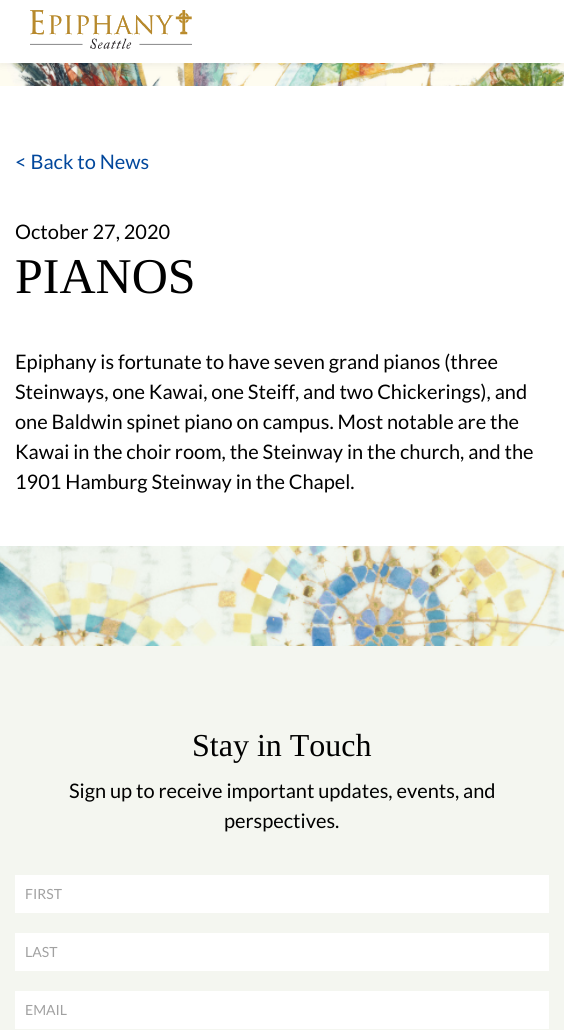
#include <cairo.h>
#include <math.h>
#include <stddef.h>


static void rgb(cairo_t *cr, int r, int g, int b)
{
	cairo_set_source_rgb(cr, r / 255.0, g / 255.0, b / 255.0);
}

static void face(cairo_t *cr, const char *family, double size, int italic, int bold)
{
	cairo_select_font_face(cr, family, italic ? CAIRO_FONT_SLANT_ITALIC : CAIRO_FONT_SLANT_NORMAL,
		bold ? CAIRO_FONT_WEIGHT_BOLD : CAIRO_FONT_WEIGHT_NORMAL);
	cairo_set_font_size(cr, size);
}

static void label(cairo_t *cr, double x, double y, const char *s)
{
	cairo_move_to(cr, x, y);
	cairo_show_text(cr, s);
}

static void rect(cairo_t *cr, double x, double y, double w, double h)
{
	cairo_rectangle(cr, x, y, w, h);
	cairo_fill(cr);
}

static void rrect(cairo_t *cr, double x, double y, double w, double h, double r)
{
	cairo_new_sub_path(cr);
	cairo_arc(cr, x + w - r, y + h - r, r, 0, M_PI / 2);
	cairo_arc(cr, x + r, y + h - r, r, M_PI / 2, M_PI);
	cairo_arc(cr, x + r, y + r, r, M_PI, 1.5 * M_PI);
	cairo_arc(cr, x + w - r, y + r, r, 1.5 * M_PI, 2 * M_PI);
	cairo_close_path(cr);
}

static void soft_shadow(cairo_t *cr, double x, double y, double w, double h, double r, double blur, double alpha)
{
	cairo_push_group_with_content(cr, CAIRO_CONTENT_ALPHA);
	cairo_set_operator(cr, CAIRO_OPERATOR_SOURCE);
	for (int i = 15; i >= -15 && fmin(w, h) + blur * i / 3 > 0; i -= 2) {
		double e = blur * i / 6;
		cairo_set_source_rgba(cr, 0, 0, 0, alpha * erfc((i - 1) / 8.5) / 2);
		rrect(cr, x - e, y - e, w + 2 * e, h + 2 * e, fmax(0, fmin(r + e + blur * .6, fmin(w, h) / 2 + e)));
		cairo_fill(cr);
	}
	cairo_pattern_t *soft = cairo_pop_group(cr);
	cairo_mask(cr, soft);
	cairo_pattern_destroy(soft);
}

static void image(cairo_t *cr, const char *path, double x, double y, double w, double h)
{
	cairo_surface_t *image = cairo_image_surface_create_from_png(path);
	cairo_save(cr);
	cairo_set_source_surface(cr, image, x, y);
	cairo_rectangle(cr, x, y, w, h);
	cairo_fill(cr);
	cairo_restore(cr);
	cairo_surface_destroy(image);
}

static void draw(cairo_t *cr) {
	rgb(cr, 255, 255, 255);
	cairo_paint(cr);
	image(cr, "image1.png", 0, 63, 564, 23);
	rgb(cr, 0, 0, 0);
	soft_shadow(cr, 0, 3, 564, 63, 0, 3, 0.05);
	rgb(cr, 255, 255, 255);
	rect(cr, 0, 0, 564, 63);
	image(cr, "image0.png", 30, 10, 162, 39);
	face(cr, "Lato", 20, 0, 0);
	rgb(cr, 1, 71, 156);
	label(cr, 15, 169, "< Back to News");
	rgb(cr, 0, 0, 0);
	label(cr, 15, 239, "October 27, 2020");
	face(cr, "Liberation Serif", 50, 0, 0);
	label(cr, 15, 293, "PIANOS");
	face(cr, "Lato", 20, 0, 0);
	label(cr, 15, 369, "Epiphany is fortunate to have seven grand pianos (three");
	label(cr, 15, 399, "Steinways, one Kawai, one Steiff, and two Chickerings), and");
	label(cr, 15, 429, "one Baldwin spinet piano on campus. Most notable are the");
	label(cr, 15, 459, "Kawai in the choir room, the Steinway in the church, and the");
	label(cr, 15, 489, "1901 Hamburg Steinway in the Chapel.");
	image(cr, "image2.png", 0, 546, 564, 100);
	rgb(cr, 244, 246, 240);
	rect(cr, 0, 646, 564, 384);
	face(cr, "Liberation Serif", 32, 0, 0);
	rgb(cr, 0, 0, 0);
	label(cr, 192, 756, "Stay in Touch");
	face(cr, "Lato", 20, 0, 0);
	label(cr, 69, 798, "Sign up to receive important updates, events, and");
	label(cr, 224, 828, "perspectives.");
	rgb(cr, 255, 255, 255);
	rect(cr, 15, 875, 534, 38);
	face(cr, "Lato", 14, 0, 0);
	rgb(cr, 161, 161, 161);
	label(cr, 25, 899, "FIRST");
	rgb(cr, 255, 255, 255);
	rect(cr, 15, 933, 534, 38);
	rgb(cr, 161, 161, 161);
	label(cr, 25, 957, "LAST");
	rgb(cr, 255, 255, 255);
	rect(cr, 15, 991, 534, 38);
	rgb(cr, 161, 161, 161);
	label(cr, 25, 1015, "EMAIL");
}

int main(void) {
	cairo_surface_t *surface = cairo_image_surface_create(CAIRO_FORMAT_RGB24, 564, 1030);
	cairo_t *cr = cairo_create(surface);
	cairo_font_options_t *options = cairo_font_options_create();
	cairo_font_options_set_hint_metrics(options, CAIRO_HINT_METRICS_OFF);
	cairo_font_options_set_hint_style(options, CAIRO_HINT_STYLE_NONE);
	cairo_set_font_options(cr, options);
	cairo_set_miter_limit(cr, 4);
	draw(cr);
	cairo_surface_write_to_png(surface, "render.png");
	cairo_font_options_destroy(options);
	cairo_destroy(cr);
	cairo_surface_destroy(surface);
	return 0;
}
